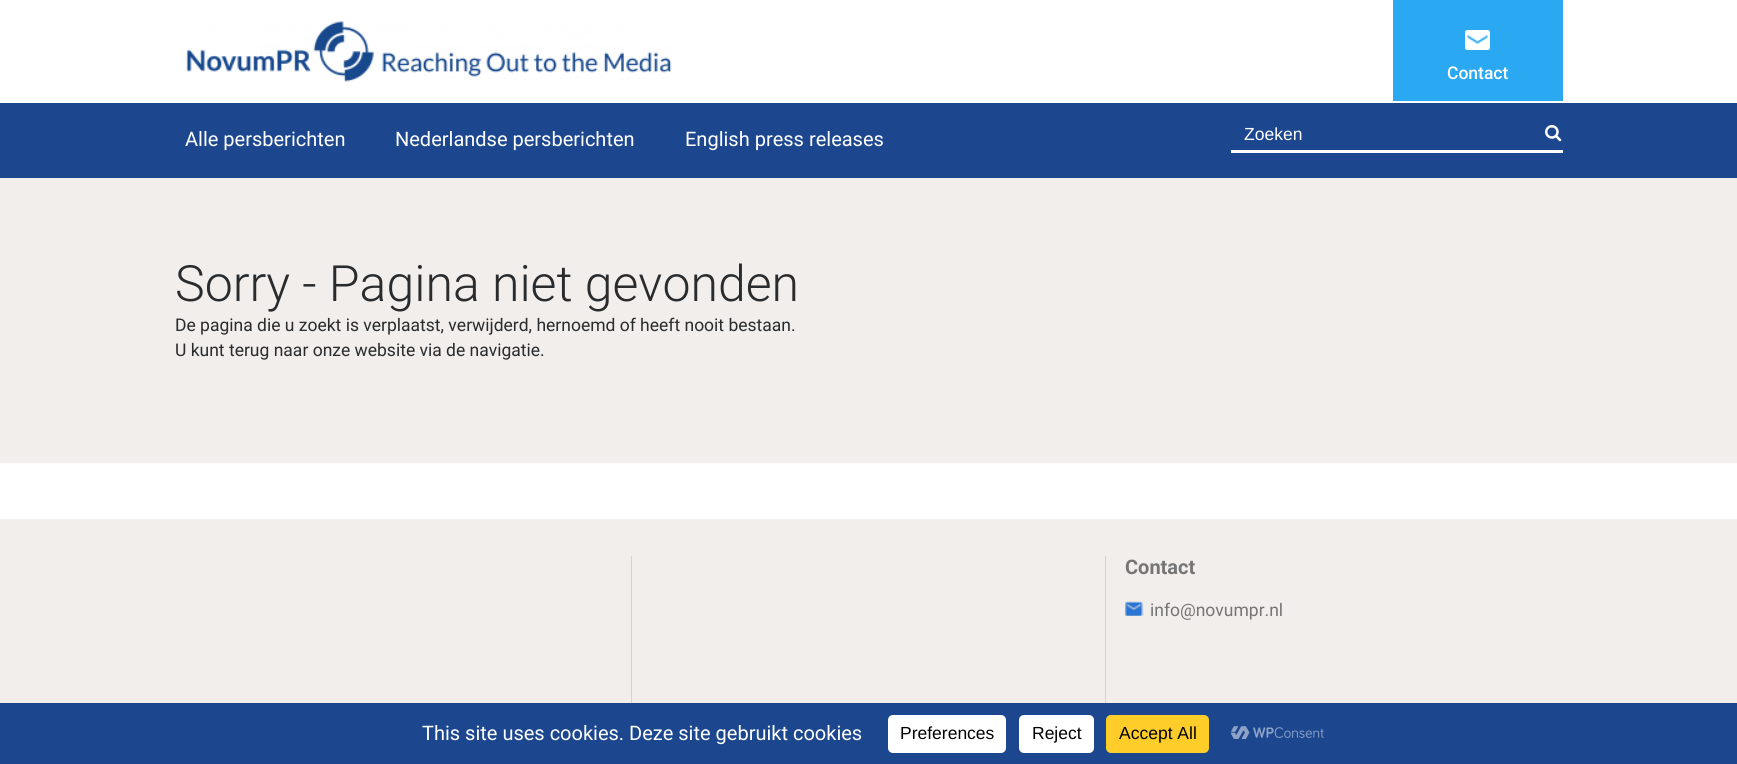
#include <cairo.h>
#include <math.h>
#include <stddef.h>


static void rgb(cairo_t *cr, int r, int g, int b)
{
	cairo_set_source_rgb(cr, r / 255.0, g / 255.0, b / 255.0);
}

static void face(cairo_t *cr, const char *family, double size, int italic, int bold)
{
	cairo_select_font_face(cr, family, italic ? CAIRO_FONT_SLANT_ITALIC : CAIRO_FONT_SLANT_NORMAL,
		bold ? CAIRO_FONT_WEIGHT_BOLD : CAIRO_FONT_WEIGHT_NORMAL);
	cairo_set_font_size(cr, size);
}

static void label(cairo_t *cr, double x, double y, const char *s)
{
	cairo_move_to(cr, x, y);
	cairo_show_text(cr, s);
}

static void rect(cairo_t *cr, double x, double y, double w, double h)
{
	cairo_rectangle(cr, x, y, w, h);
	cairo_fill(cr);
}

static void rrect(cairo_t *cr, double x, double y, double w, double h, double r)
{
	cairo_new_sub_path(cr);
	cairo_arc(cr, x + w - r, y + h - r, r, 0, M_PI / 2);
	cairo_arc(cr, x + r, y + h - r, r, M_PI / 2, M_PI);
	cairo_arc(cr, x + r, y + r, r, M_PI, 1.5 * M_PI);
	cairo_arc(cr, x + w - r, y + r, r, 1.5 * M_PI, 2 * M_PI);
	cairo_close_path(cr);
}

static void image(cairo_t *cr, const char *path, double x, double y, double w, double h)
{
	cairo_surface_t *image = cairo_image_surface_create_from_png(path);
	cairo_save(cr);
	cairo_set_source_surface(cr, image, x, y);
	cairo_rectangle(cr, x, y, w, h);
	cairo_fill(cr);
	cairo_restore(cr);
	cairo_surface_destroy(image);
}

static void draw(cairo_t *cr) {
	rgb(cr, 255, 255, 255);
	cairo_paint(cr);
	image(cr, "image0.png", 186, 21, 486, 61);
	rgb(cr, 42, 168, 242);
	rect(cr, 1393, 0, 170, 101);
	image(cr, "image1.png", 1465, 30, 25, 20);
	face(cr, "Roboto Medium", 17.5, 0, 0);
	rgb(cr, 255, 255, 255);
	label(cr, 1447, 79, "Contact");
	rgb(cr, 28, 71, 143);
	rect(cr, 0, 103, 1737, 75);
	face(cr, "Roboto", 20, 0, 0);
	rgb(cr, 255, 255, 255);
	label(cr, 185, 146, "Alle persberichten");
	label(cr, 395, 146, "Nederlandse persberichten");
	label(cr, 685, 146, "English press releases");
	rect(cr, 1231, 150, 332, 3);
	face(cr, "Liberation Sans", 17.5, 0, 0);
	label(cr, 1244, 140, "Zoeken");
	image(cr, "image2.png", 1545, 125, 17, 17);
	rgb(cr, 241, 238, 236);
	rect(cr, 0, 178, 1737, 285);
	face(cr, "Roboto Light", 50, 0, 0);
	rgb(cr, 41, 43, 44);
	label(cr, 175, 301, "Sorry - Pagina niet gevonden");
	face(cr, "Roboto", 17.5, 0, 0);
	label(cr, 175, 331, "De pagina die u zoekt is verplaatst, verwijderd, hernoemd of heeft nooit bestaan.");
	label(cr, 175, 356, "U kunt terug naar onze website via de navigatie.");
	rgb(cr, 241, 238, 236);
	rect(cr, 0, 519, 1737, 184);
	rgb(cr, 214, 210, 207);
	rect(cr, 631, 556, 1, 147);
	rect(cr, 1105, 556, 1, 147);
	face(cr, "Roboto", 20, 0, 1);
	rgb(cr, 117, 117, 117);
	label(cr, 1125, 574, "Contact");
	image(cr, "image3.png", 1125, 601, 19, 15);
	face(cr, "Roboto", 17.5, 0, 0);
	label(cr, 1150, 616, "info@novumpr.nl");
	rgb(cr, 28, 71, 143);
	rect(cr, 0, 703, 1737, 61);
	face(cr, "Roboto", 20, 0, 0);
	rgb(cr, 255, 255, 255);
	label(cr, 422, 740, "This site uses cookies. Deze site gebruikt cookies");
	rrect(cr, 888, 715, 118, 38, 5);
	cairo_fill(cr);
	face(cr, "Liberation Sans", 17.5, 0, 0);
	rgb(cr, 0, 0, 0);
	label(cr, 900, 739, "Preferences");
	rgb(cr, 255, 255, 255);
	rrect(cr, 1019, 715, 75, 38, 5);
	cairo_fill(cr);
	rgb(cr, 0, 0, 0);
	label(cr, 1032, 739, "Reject");
	rgb(cr, 255, 205, 42);
	rrect(cr, 1106, 715, 103, 38, 5);
	cairo_fill(cr);
	rgb(cr, 0, 0, 0);
	label(cr, 1119, 739, "Accept All");
	image(cr, "image4.png", 1231, 726, 93, 13);
}

int main(void) {
	cairo_surface_t *surface = cairo_image_surface_create(CAIRO_FORMAT_RGB24, 1737, 764);
	cairo_t *cr = cairo_create(surface);
	cairo_font_options_t *options = cairo_font_options_create();
	cairo_font_options_set_hint_metrics(options, CAIRO_HINT_METRICS_OFF);
	cairo_font_options_set_hint_style(options, CAIRO_HINT_STYLE_NONE);
	cairo_set_font_options(cr, options);
	cairo_set_miter_limit(cr, 4);
	draw(cr);
	cairo_surface_write_to_png(surface, "render.png");
	cairo_font_options_destroy(options);
	cairo_destroy(cr);
	cairo_surface_destroy(surface);
	return 0;
}
